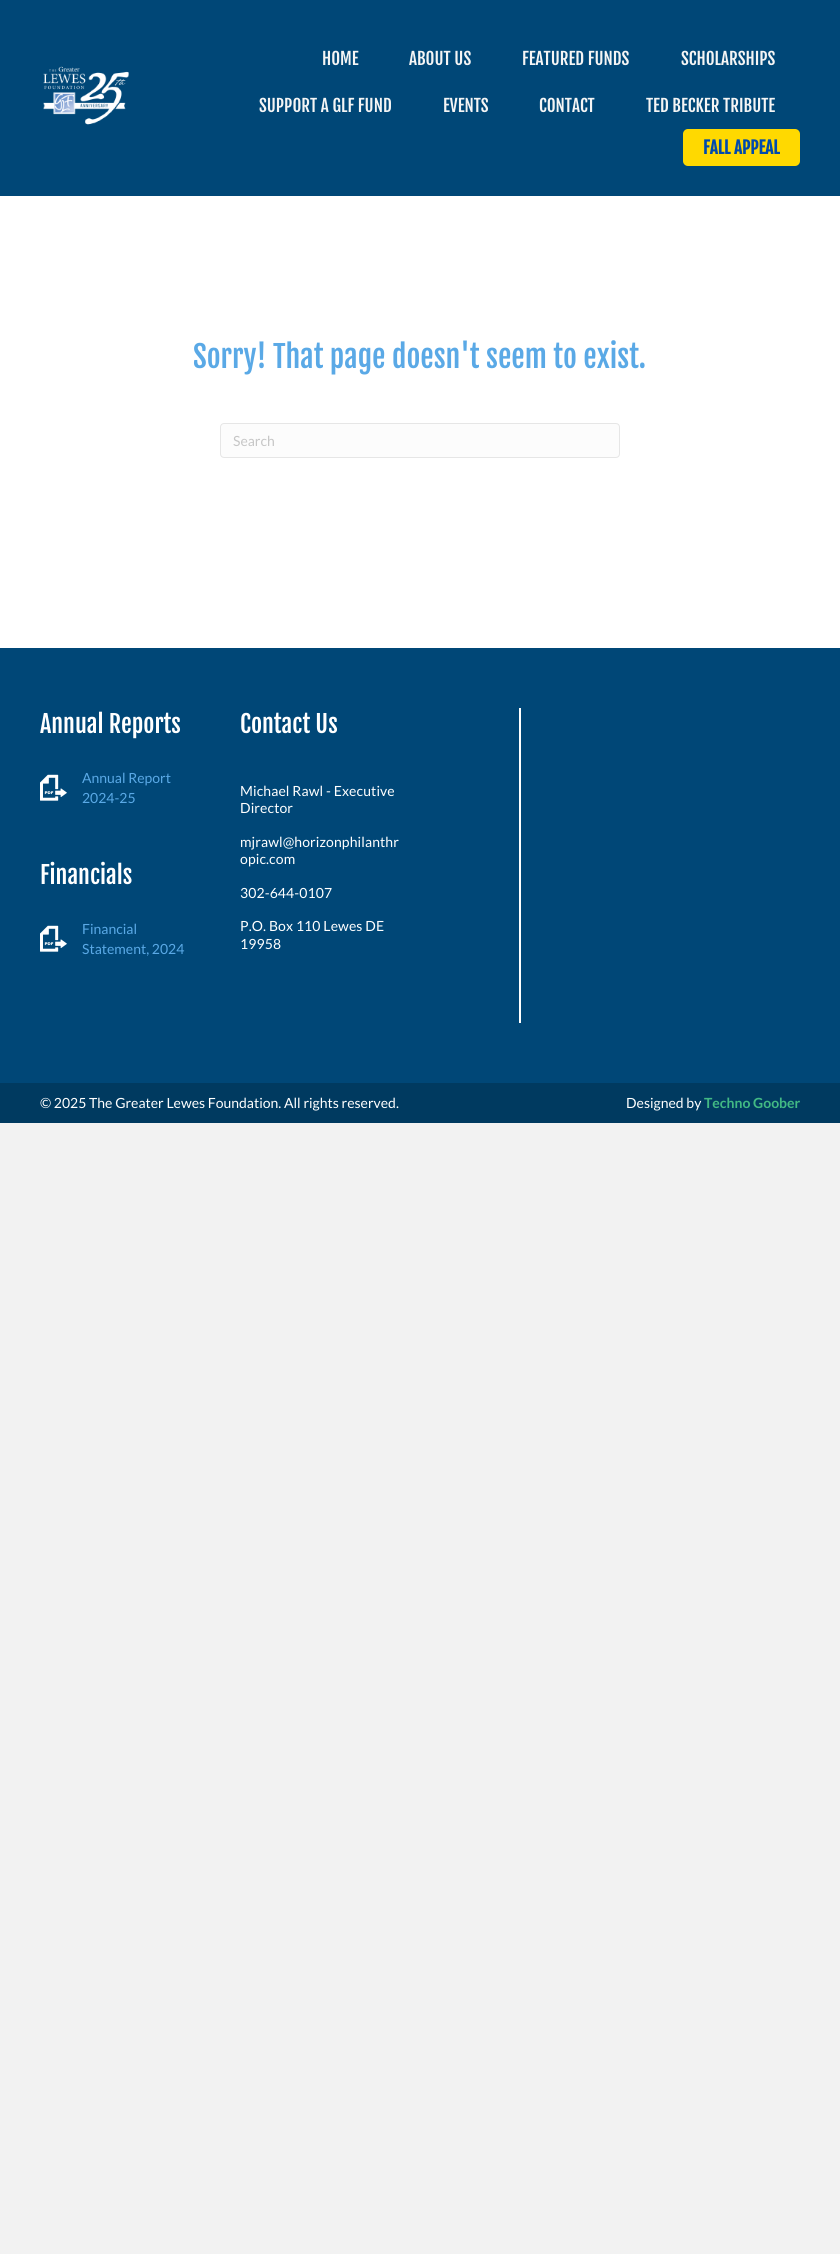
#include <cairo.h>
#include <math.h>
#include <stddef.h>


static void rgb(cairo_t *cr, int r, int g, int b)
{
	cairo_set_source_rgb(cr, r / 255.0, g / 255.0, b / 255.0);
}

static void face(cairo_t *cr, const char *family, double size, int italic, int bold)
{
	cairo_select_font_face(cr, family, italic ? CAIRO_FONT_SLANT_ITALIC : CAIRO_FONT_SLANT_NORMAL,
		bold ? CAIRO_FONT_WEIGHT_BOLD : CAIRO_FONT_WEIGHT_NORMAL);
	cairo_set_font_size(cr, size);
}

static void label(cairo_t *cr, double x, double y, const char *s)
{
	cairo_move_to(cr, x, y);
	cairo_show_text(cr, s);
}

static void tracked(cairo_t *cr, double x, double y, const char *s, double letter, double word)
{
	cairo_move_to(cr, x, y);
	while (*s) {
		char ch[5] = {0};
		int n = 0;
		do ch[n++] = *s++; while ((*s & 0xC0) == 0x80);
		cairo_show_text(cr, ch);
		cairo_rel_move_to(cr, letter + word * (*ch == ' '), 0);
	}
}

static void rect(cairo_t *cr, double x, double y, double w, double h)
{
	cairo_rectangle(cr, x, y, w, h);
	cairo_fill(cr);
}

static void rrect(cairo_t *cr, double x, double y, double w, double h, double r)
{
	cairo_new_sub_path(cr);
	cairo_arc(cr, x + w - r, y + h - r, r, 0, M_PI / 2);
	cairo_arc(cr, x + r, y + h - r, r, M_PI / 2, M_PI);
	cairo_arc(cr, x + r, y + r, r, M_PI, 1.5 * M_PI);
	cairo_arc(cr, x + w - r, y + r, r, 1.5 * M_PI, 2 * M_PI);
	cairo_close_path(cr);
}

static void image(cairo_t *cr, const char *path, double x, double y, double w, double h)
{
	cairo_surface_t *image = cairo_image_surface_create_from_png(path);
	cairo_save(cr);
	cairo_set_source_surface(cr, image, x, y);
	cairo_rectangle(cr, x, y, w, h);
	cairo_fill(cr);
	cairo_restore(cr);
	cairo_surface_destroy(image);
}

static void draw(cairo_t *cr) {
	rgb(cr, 242, 242, 242);
	cairo_paint(cr);
	rgb(cr, 0, 71, 119);
	rect(cr, 0, 0, 840, 196);
	image(cr, "image0.png", 43, 66, 86, 59);
	face(cr, "Fjalla One", 17, 0, 0);
	rgb(cr, 245, 245, 245);
	label(cr, 322, 65, "HOME");
	label(cr, 409, 65, "ABOUT US");
	label(cr, 522, 65, "FEATURED FUNDS");
	label(cr, 681, 65, "SCHOLARSHIPS");
	label(cr, 259, 112, "SUPPORT A GLF FUND");
	label(cr, 443, 112, "EVENTS");
	label(cr, 539, 112, "CONTACT");
	label(cr, 646, 112, "TED BECKER TRIBUTE");
	rgb(cr, 255, 217, 0);
	rrect(cr, 683, 129, 117, 37, 5);
	cairo_fill(cr);
	face(cr, "Fjalla One", 17, 0, 1);
	rgb(cr, 0, 74, 173);
	label(cr, 703, 154, "FALL APPEAL");
	rgb(cr, 255, 255, 255);
	rect(cr, 0, 196, 840, 452);
	face(cr, "Fjalla One", 30, 0, 0);
	rgb(cr, 90, 169, 230);
	label(cr, 193, 368, "Sorry! That page doesn't seem to exist.");
	rgb(cr, 252, 252, 252);
	rrect(cr, 220.5, 423.5, 399, 34, 3.5);
	cairo_fill_preserve(cr);
	rgb(cr, 230, 230, 230);
	cairo_set_line_width(cr, 1);
	cairo_stroke(cr);
	face(cr, "Lato", 14, 0, 0);
	rgb(cr, 198, 198, 198);
	label(cr, 233, 446, "Search");
	rgb(cr, 0, 71, 119);
	rect(cr, 0, 648, 840, 435);
	face(cr, "Fjalla One", 24, 0, 0);
	rgb(cr, 255, 255, 255);
	label(cr, 40, 733, "Annual Reports");
	image(cr, "image1.png", 40, 774, 27, 27);
	face(cr, "Lato", 14, 0, 0);
	rgb(cr, 90, 169, 230);
	label(cr, 82, 783, "Annual Report");
	label(cr, 82, 803, "2024-25");
	face(cr, "Fjalla One", 24, 0, 0);
	rgb(cr, 255, 255, 255);
	label(cr, 40, 884, "Financials");
	image(cr, "image1.png", 40, 925, 27, 27);
	face(cr, "Lato", 14, 0, 0);
	rgb(cr, 90, 169, 230);
	label(cr, 82, 934, "Financial");
	label(cr, 82, 954, "Statement, 2024");
	face(cr, "Fjalla One", 24, 0, 0);
	rgb(cr, 255, 255, 255);
	label(cr, 240, 733, "Contact Us");
	face(cr, "Lato", 14, 0, 0);
	tracked(cr, 240, 796, "Michael Rawl - Executive", 0.1, 0);
	tracked(cr, 240, 813, "Director", 0.1, 0);
	tracked(cr, 240, 847, "mjrawl@horizonphilanthr", 0.1, 0);
	tracked(cr, 240, 864, "opic.com", 0.1, 0);
	tracked(cr, 240, 898, "302-644-0107", 0.1, 0);
	tracked(cr, 240, 931, "P.O. Box 110 Lewes DE", 0.1, 0);
	tracked(cr, 240, 949, "19958", 0.1, 0);
	rect(cr, 519, 708, 2, 315);
	rgb(cr, 0, 58, 96);
	rect(cr, 0, 1083, 840, 40);
	rgb(cr, 255, 255, 255);
	label(cr, 40, 1108, "© 2025 The Greater Lewes Foundation. All rights reserved.");
	label(cr, 626, 1108, "Designed by");
	face(cr, "Lato", 14, 0, 1);
	rgb(cr, 66, 185, 132);
	label(cr, 704, 1108, "Techno Goober");
}

int main(void) {
	cairo_surface_t *surface = cairo_image_surface_create(CAIRO_FORMAT_RGB24, 840, 2254);
	cairo_t *cr = cairo_create(surface);
	cairo_font_options_t *options = cairo_font_options_create();
	cairo_font_options_set_hint_metrics(options, CAIRO_HINT_METRICS_OFF);
	cairo_font_options_set_hint_style(options, CAIRO_HINT_STYLE_NONE);
	cairo_set_font_options(cr, options);
	cairo_set_miter_limit(cr, 4);
	draw(cr);
	cairo_surface_write_to_png(surface, "render.png");
	cairo_font_options_destroy(options);
	cairo_destroy(cr);
	cairo_surface_destroy(surface);
	return 0;
}
